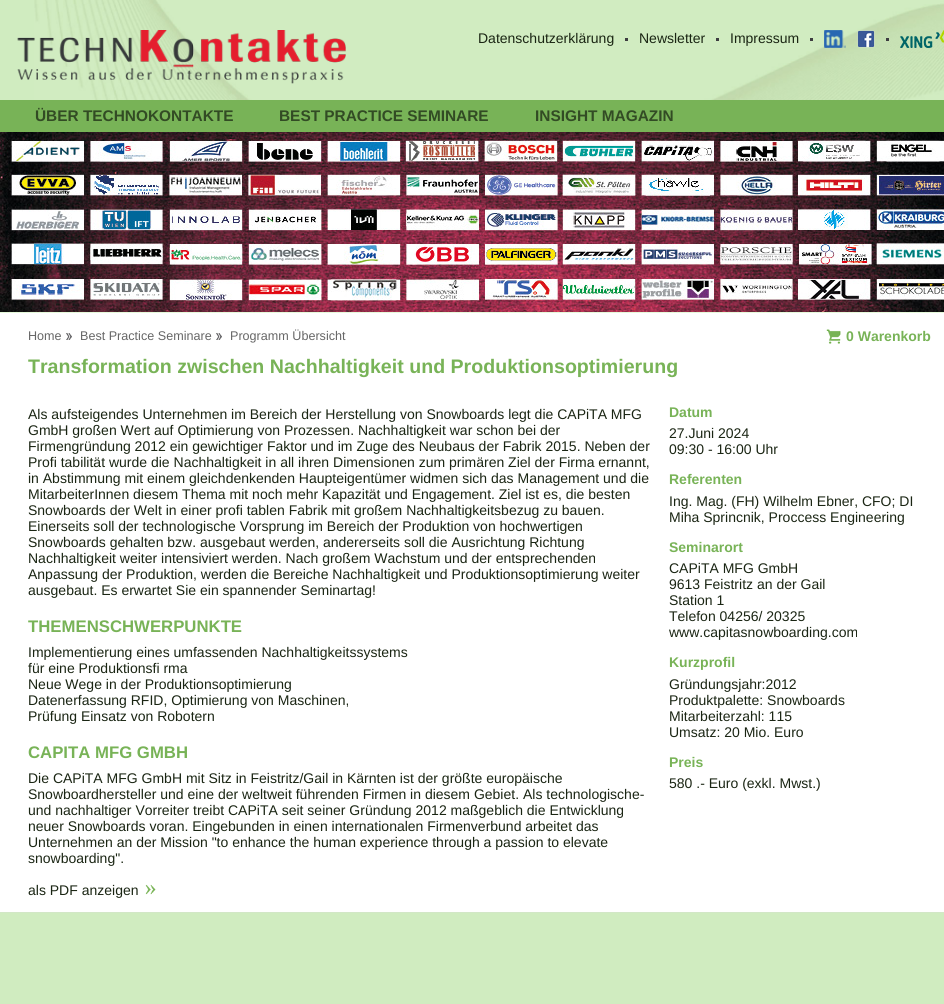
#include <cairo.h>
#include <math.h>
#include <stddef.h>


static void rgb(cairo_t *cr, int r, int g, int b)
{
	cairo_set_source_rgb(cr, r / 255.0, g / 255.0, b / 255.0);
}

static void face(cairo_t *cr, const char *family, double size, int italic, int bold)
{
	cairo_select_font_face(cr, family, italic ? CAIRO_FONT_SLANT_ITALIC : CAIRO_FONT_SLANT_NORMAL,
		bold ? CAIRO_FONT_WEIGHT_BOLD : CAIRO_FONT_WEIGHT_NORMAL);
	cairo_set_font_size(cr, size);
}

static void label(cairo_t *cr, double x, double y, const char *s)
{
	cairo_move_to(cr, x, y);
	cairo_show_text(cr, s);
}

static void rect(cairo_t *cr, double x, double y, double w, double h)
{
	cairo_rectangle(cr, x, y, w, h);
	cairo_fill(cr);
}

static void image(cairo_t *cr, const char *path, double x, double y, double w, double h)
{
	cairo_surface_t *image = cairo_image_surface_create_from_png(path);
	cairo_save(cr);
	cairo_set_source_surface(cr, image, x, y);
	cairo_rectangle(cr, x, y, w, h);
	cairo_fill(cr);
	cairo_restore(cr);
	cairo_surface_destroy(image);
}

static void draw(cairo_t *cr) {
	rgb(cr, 208, 236, 192);
	cairo_paint(cr);
	image(cr, "image0.png", 34, 0, 910, 100);
	image(cr, "image1.png", 17, 30, 329, 54);
	face(cr, "Liberation Sans", 14, 0, 0);
	rgb(cr, 26, 37, 19);
	label(cr, 478, 43, "Datenschutzerklärung");
	rgb(cr, 62, 61, 64);
	rect(cr, 625, 38, 3, 3);
	rgb(cr, 26, 37, 19);
	label(cr, 639, 43, "Newsletter");
	rgb(cr, 62, 61, 64);
	rect(cr, 716, 38, 3, 3);
	rgb(cr, 26, 37, 19);
	label(cr, 730, 43, "Impressum");
	rgb(cr, 62, 61, 64);
	rect(cr, 810, 38, 3, 3);
	image(cr, "image2.png", 824, 30, 22, 18);
	image(cr, "image3.png", 857, 30, 18, 18);
	rect(cr, 886, 38, 3, 3);
	image(cr, "image4.png", 900, 30, 44, 18);
	rgb(cr, 120, 179, 87);
	rect(cr, 0, 100, 944, 32);
	face(cr, "Liberation Sans", 15.4, 0, 1);
	rgb(cr, 50, 75, 36);
	label(cr, 35, 121, "ÜBER TECHNOKONTAKTE");
	label(cr, 279, 121, "BEST PRACTICE SEMINARE");
	label(cr, 535, 121, "INSIGHT MAGAZIN");
	rgb(cr, 229, 249, 218);
	rect(cr, 0, 312, 944, 1);
	image(cr, "image5.png", 0, 132, 944, 180);
	rgb(cr, 255, 255, 255);
	rect(cr, 0, 313, 944, 599);
	rgb(cr, 210, 231, 198);
	rect(cr, 0, 912, 944, 1);
	face(cr, "Liberation Sans", 12.6, 0, 0);
	rgb(cr, 102, 102, 102);
	label(cr, 28, 340, "Home");
	image(cr, "image6.png", 66, 333, 6, 7);
	label(cr, 80, 340, "Best Practice Seminare");
	image(cr, "image6.png", 216, 333, 6, 7);
	label(cr, 230, 340, "Programm Übersicht");
	image(cr, "image7.png", 826, 329, 15, 15);
	face(cr, "Liberation Sans", 14, 0, 1);
	rgb(cr, 120, 179, 87);
	label(cr, 846, 341, "0 Warenkorb");
	face(cr, "Liberation Sans", 19.6, 0, 1);
	label(cr, 28, 373, "Transformation zwischen Nachhaltigkeit und Produktionsoptimierung");
	face(cr, "Liberation Sans", 14, 0, 0);
	rgb(cr, 26, 37, 19);
	label(cr, 28, 419, "Als aufsteigendes Unternehmen im Bereich der Herstellung von Snowboards legt die CAPiTA MFG");
	label(cr, 28, 435, "GmbH großen Wert auf Optimierung von Prozessen. Nachhaltigkeit war schon bei der");
	label(cr, 28, 451, "Firmengründung 2012 ein gewichtiger Faktor und im Zuge des Neubaus der Fabrik 2015. Neben der");
	label(cr, 28, 467, "Profi tabilität wurde die Nachhaltigkeit in all ihren Dimensionen zum primären Ziel der Firma ernannt,");
	label(cr, 28, 483, "in Abstimmung mit einem gleichdenkenden Haupteigentümer widmen sich das Management und die");
	label(cr, 28, 499, "MitarbeiterInnen diesem Thema mit noch mehr Kapazität und Engagement. Ziel ist es, die besten");
	label(cr, 28, 515, "Snowboards der Welt in einer profi tablen Fabrik mit großem Nachhaltigkeitsbezug zu bauen.");
	label(cr, 28, 531, "Einerseits soll der technologische Vorsprung im Bereich der Produktion von hochwertigen");
	label(cr, 28, 547, "Snowboards gehalten bzw. ausgebaut werden, andererseits soll die Ausrichtung Richtung");
	label(cr, 28, 563, "Nachhaltigkeit weiter intensiviert werden. Nach großem Wachstum und der entsprechenden");
	label(cr, 28, 579, "Anpassung der Produktion, werden die Bereiche Nachhaltigkeit und Produktionsoptimierung weiter");
	label(cr, 28, 595, "ausgebaut. Es erwartet Sie ein spannender Seminartag!");
	face(cr, "Liberation Sans", 16.75, 0, 1);
	rgb(cr, 120, 179, 87);
	label(cr, 28, 632, "THEMENSCHWERPUNKTE");
	face(cr, "Liberation Sans", 14, 0, 0);
	rgb(cr, 26, 37, 19);
	label(cr, 28, 657, "Implementierung eines umfassenden Nachhaltigkeitssystems");
	label(cr, 28, 673, "für eine Produktionsfi rma");
	label(cr, 28, 689, "Neue Wege in der Produktionsoptimierung");
	label(cr, 28, 705, "Datenerfassung RFID, Optimierung von Maschinen,");
	label(cr, 28, 721, "Prüfung Einsatz von Robotern");
	face(cr, "Liberation Sans", 16.75, 0, 1);
	rgb(cr, 120, 179, 87);
	label(cr, 28, 758, "CAPITA MFG GMBH");
	face(cr, "Liberation Sans", 14, 0, 0);
	rgb(cr, 26, 37, 19);
	label(cr, 28, 783, "Die CAPiTA MFG GmbH mit Sitz in Feistritz/Gail in Kärnten ist der größte europäische");
	label(cr, 28, 799, "Snowboardhersteller und eine der weltweit führenden Firmen in diesem Gebiet. Als technologische-");
	label(cr, 28, 815, "und nachhaltiger Vorreiter treibt CAPiTA seit seiner Gründung 2012 maßgeblich die Entwicklung");
	label(cr, 28, 831, "neuer Snowboards voran. Eingebunden in einen internationalen Firmenverbund arbeitet das");
	label(cr, 28, 847, "Unternehmen an der Mission \"to enhance the human experience through a passion to elevate");
	label(cr, 28, 863, "snowboarding\".");
	label(cr, 28, 895, "als PDF anzeigen");
	image(cr, "image8.png", 145, 884, 11, 11);
	face(cr, "Liberation Sans", 14, 0, 1);
	rgb(cr, 120, 179, 87);
	label(cr, 669, 417, "Datum");
	face(cr, "Liberation Sans", 14, 0, 0);
	rgb(cr, 26, 37, 19);
	label(cr, 669, 438, "27.Juni 2024");
	label(cr, 669, 454, "09:30 - 16:00 Uhr");
	face(cr, "Liberation Sans", 14, 0, 1);
	rgb(cr, 120, 179, 87);
	label(cr, 669, 484, "Referenten");
	face(cr, "Liberation Sans", 14, 0, 0);
	rgb(cr, 26, 37, 19);
	label(cr, 669, 506, "Ing. Mag. (FH) Wilhelm Ebner, CFO; DI");
	label(cr, 669, 522, "Miha Sprincnik, Proccess Engineering");
	face(cr, "Liberation Sans", 14, 0, 1);
	rgb(cr, 120, 179, 87);
	label(cr, 669, 552, "Seminarort");
	face(cr, "Liberation Sans", 14, 0, 0);
	rgb(cr, 26, 37, 19);
	label(cr, 669, 573, "CAPiTA MFG GmbH");
	label(cr, 669, 589, "9613 Feistritz an der Gail");
	label(cr, 669, 605, "Station 1");
	label(cr, 669, 621, "Telefon 04256/ 20325");
	label(cr, 669, 637, "www.capitasnowboarding.com");
	face(cr, "Liberation Sans", 14, 0, 1);
	rgb(cr, 120, 179, 87);
	label(cr, 669, 667, "Kurzprofil");
	face(cr, "Liberation Sans", 14, 0, 0);
	rgb(cr, 26, 37, 19);
	label(cr, 669, 689, "Gründungsjahr:2012");
	label(cr, 669, 705, "Produktpalette: Snowboards");
	label(cr, 669, 721, "Mitarbeiterzahl: 115");
	label(cr, 669, 737, "Umsatz: 20 Mio. Euro");
	face(cr, "Liberation Sans", 14, 0, 1);
	rgb(cr, 120, 179, 87);
	label(cr, 669, 767, "Preis");
	face(cr, "Liberation Sans", 14, 0, 0);
	rgb(cr, 26, 37, 19);
	label(cr, 669, 788, "580 .- Euro (exkl. Mwst.)");
}

int main(void) {
	cairo_surface_t *surface = cairo_image_surface_create(CAIRO_FORMAT_RGB24, 944, 1004);
	cairo_t *cr = cairo_create(surface);
	cairo_font_options_t *options = cairo_font_options_create();
	cairo_font_options_set_hint_metrics(options, CAIRO_HINT_METRICS_OFF);
	cairo_font_options_set_hint_style(options, CAIRO_HINT_STYLE_NONE);
	cairo_set_font_options(cr, options);
	cairo_set_miter_limit(cr, 4);
	draw(cr);
	cairo_surface_write_to_png(surface, "render.png");
	cairo_font_options_destroy(options);
	cairo_destroy(cr);
	cairo_surface_destroy(surface);
	return 0;
}
